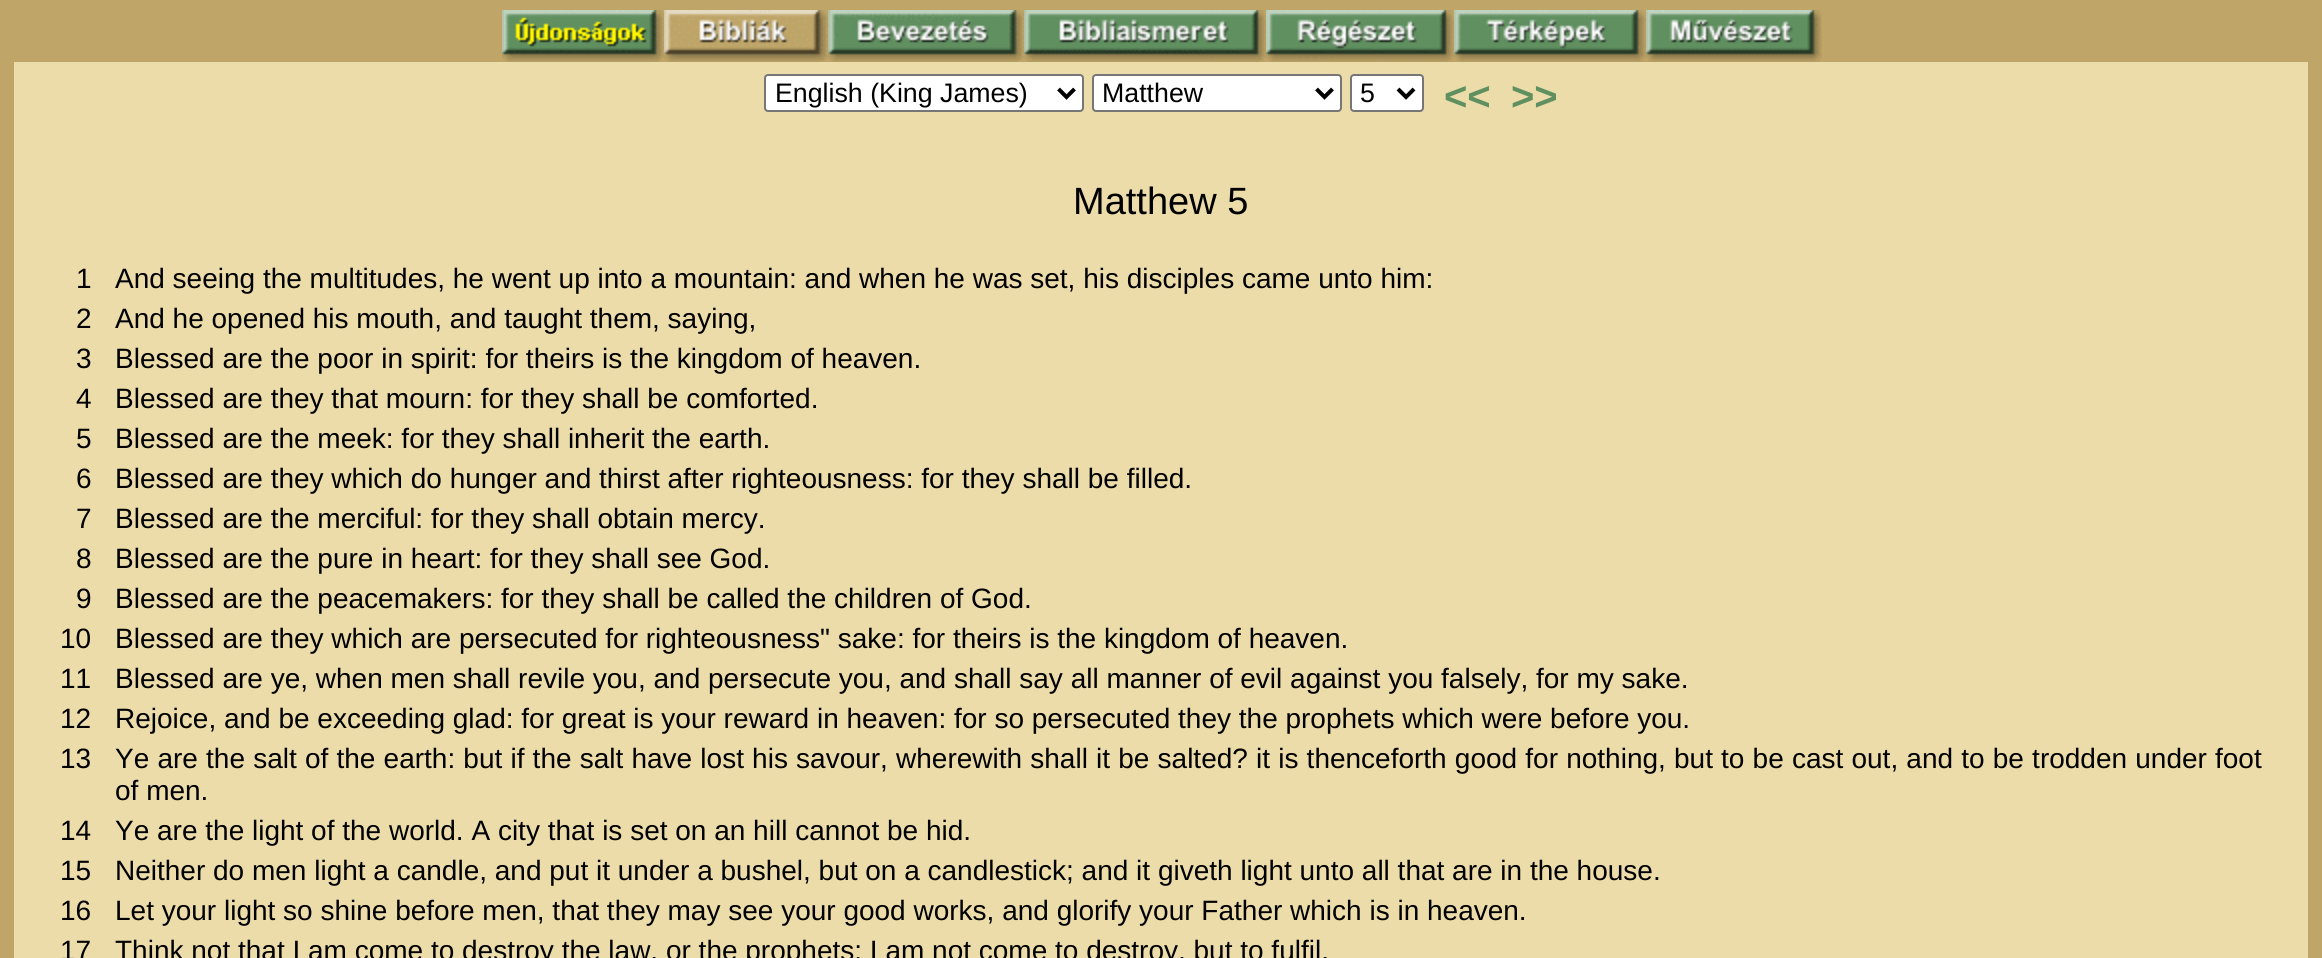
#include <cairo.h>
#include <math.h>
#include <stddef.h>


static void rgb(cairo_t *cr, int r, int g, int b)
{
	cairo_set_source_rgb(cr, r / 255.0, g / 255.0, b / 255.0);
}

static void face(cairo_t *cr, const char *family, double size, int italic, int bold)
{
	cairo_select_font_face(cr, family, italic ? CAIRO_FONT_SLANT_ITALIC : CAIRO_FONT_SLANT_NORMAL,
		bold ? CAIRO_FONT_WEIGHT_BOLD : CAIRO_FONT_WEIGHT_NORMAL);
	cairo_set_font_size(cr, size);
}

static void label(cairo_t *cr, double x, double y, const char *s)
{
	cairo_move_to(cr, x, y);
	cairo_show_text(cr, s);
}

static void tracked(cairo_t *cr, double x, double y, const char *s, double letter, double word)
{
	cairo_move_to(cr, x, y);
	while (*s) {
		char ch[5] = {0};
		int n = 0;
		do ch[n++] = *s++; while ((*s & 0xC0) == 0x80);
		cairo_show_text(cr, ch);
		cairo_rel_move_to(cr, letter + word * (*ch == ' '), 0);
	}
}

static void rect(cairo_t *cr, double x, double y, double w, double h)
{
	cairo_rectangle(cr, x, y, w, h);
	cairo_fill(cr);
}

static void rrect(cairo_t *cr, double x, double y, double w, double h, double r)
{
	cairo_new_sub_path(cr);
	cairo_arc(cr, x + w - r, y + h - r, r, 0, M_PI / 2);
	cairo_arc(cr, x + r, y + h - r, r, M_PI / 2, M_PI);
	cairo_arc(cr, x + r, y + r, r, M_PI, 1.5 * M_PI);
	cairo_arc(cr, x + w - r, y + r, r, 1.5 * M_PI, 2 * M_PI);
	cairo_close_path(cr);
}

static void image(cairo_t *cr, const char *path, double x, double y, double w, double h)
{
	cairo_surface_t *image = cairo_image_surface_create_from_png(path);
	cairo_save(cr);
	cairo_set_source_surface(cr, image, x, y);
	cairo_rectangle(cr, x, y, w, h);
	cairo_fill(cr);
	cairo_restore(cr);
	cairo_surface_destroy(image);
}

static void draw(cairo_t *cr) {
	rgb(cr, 191, 165, 104);
	cairo_paint(cr);
	image(cr, "image0.png", 502, 10, 162, 52);
	image(cr, "image1.png", 664, 10, 164, 52);
	image(cr, "image2.png", 828, 10, 196, 52);
	image(cr, "image3.png", 1024, 10, 242, 52);
	image(cr, "image4.png", 1266, 10, 188, 52);
	image(cr, "image5.png", 1454, 10, 192, 52);
	image(cr, "image6.png", 1646, 10, 176, 52);
	rgb(cr, 236, 220, 170);
	rect(cr, 14, 62, 2294, 896);
	rgb(cr, 255, 255, 255);
	rrect(cr, 765, 75, 318, 36, 3);
	cairo_fill_preserve(cr);
	rgb(cr, 118, 118, 118);
	cairo_stroke(cr);
	cairo_new_path(cr);
	cairo_move_to(cr, 1058.5, 89);
	cairo_line_to(cr, 1066.5, 97);
	cairo_line_to(cr, 1074.5, 89);
	rgb(cr, 0, 0, 0);
	cairo_set_line_width(cr, 4);
	cairo_stroke(cr);
	face(cr, "Liberation Sans", 26.75, 0, 0);
	label(cr, 775, 102, "English (King James)");
	rgb(cr, 255, 255, 255);
	rrect(cr, 1093, 75, 248, 36, 3);
	cairo_fill_preserve(cr);
	rgb(cr, 118, 118, 118);
	cairo_set_line_width(cr, 2);
	cairo_stroke(cr);
	cairo_new_path(cr);
	cairo_move_to(cr, 1316.5, 89);
	cairo_line_to(cr, 1324.5, 97);
	cairo_line_to(cr, 1332.5, 89);
	rgb(cr, 0, 0, 0);
	cairo_set_line_width(cr, 4);
	cairo_stroke(cr);
	label(cr, 1102, 102, "Matthew");
	rgb(cr, 255, 255, 255);
	rrect(cr, 1351, 75, 72, 36, 3);
	cairo_fill_preserve(cr);
	rgb(cr, 118, 118, 118);
	cairo_set_line_width(cr, 2);
	cairo_stroke(cr);
	cairo_new_path(cr);
	cairo_move_to(cr, 1398, 89);
	cairo_line_to(cr, 1406, 97);
	cairo_line_to(cr, 1414, 89);
	rgb(cr, 0, 0, 0);
	cairo_set_line_width(cr, 4);
	cairo_stroke(cr);
	label(cr, 1360, 102, "5");
	face(cr, "Liberation Sans", 40, 0, 1);
	rgb(cr, 96, 144, 96);
	label(cr, 1444, 110, "<<");
	label(cr, 1511, 110, ">>");
	face(cr, "Liberation Sans", 38, 0, 0);
	rgb(cr, 0, 0, 0);
	label(cr, 1073, 214, "Matthew 5");
	face(cr, "Liberation Sans", 28, 0, 0);
	label(cr, 76, 288, "1");
	label(cr, 115, 288, "And seeing the multitudes, he went up into a mountain: and when he was set, his disciples came unto him:");
	label(cr, 76, 328, "2");
	label(cr, 115, 328, "And he opened his mouth, and taught them, saying,");
	label(cr, 76, 368, "3");
	label(cr, 115, 368, "Blessed are the poor in spirit: for theirs is the kingdom of heaven.");
	label(cr, 76, 408, "4");
	label(cr, 115, 408, "Blessed are they that mourn: for they shall be comforted.");
	label(cr, 76, 448, "5");
	label(cr, 115, 448, "Blessed are the meek: for they shall inherit the earth.");
	label(cr, 76, 488, "6");
	label(cr, 115, 488, "Blessed are they which do hunger and thirst after righteousness: for they shall be filled.");
	label(cr, 76, 528, "7");
	label(cr, 115, 528, "Blessed are the merciful: for they shall obtain mercy.");
	label(cr, 76, 568, "8");
	label(cr, 115, 568, "Blessed are the pure in heart: for they shall see God.");
	label(cr, 76, 608, "9");
	label(cr, 115, 608, "Blessed are the peacemakers: for they shall be called the children of God.");
	label(cr, 60, 648, "10");
	label(cr, 115, 648, "Blessed are they which are persecuted for righteousness\" sake: for theirs is the kingdom of heaven.");
	label(cr, 60, 688, "11");
	label(cr, 115, 688, "Blessed are ye, when men shall revile you, and persecute you, and shall say all manner of evil against you falsely, for my sake.");
	label(cr, 60, 728, "12");
	label(cr, 115, 728, "Rejoice, and be exceeding glad: for great is your reward in heaven: for so persecuted they the prophets which were before you.");
	label(cr, 60, 768, "13");
	tracked(cr, 115, 768, "Ye are the salt of the earth: but if the salt have lost his savour, wherewith shall it be salted? it is thenceforth good for nothing, but to be cast out, and to be trodden under foot", 0, 0.4);
	label(cr, 115, 800, "of men.");
	label(cr, 60, 840, "14");
	label(cr, 115, 840, "Ye are the light of the world. A city that is set on an hill cannot be hid.");
	label(cr, 60, 880, "15");
	label(cr, 115, 880, "Neither do men light a candle, and put it under a bushel, but on a candlestick; and it giveth light unto all that are in the house.");
	label(cr, 60, 920, "16");
	label(cr, 115, 920, "Let your light so shine before men, that they may see your good works, and glorify your Father which is in heaven.");
	label(cr, 60, 960, "17");
	label(cr, 115, 960, "Think not that I am come to destroy the law, or the prophets: I am not come to destroy, but to fulfil.");
}

int main(void) {
	cairo_surface_t *surface = cairo_image_surface_create(CAIRO_FORMAT_RGB24, 2322, 958);
	cairo_t *cr = cairo_create(surface);
	cairo_font_options_t *options = cairo_font_options_create();
	cairo_font_options_set_hint_metrics(options, CAIRO_HINT_METRICS_OFF);
	cairo_font_options_set_hint_style(options, CAIRO_HINT_STYLE_NONE);
	cairo_set_font_options(cr, options);
	cairo_set_miter_limit(cr, 4);
	draw(cr);
	cairo_surface_write_to_png(surface, "render.png");
	cairo_font_options_destroy(options);
	cairo_destroy(cr);
	cairo_surface_destroy(surface);
	return 0;
}
